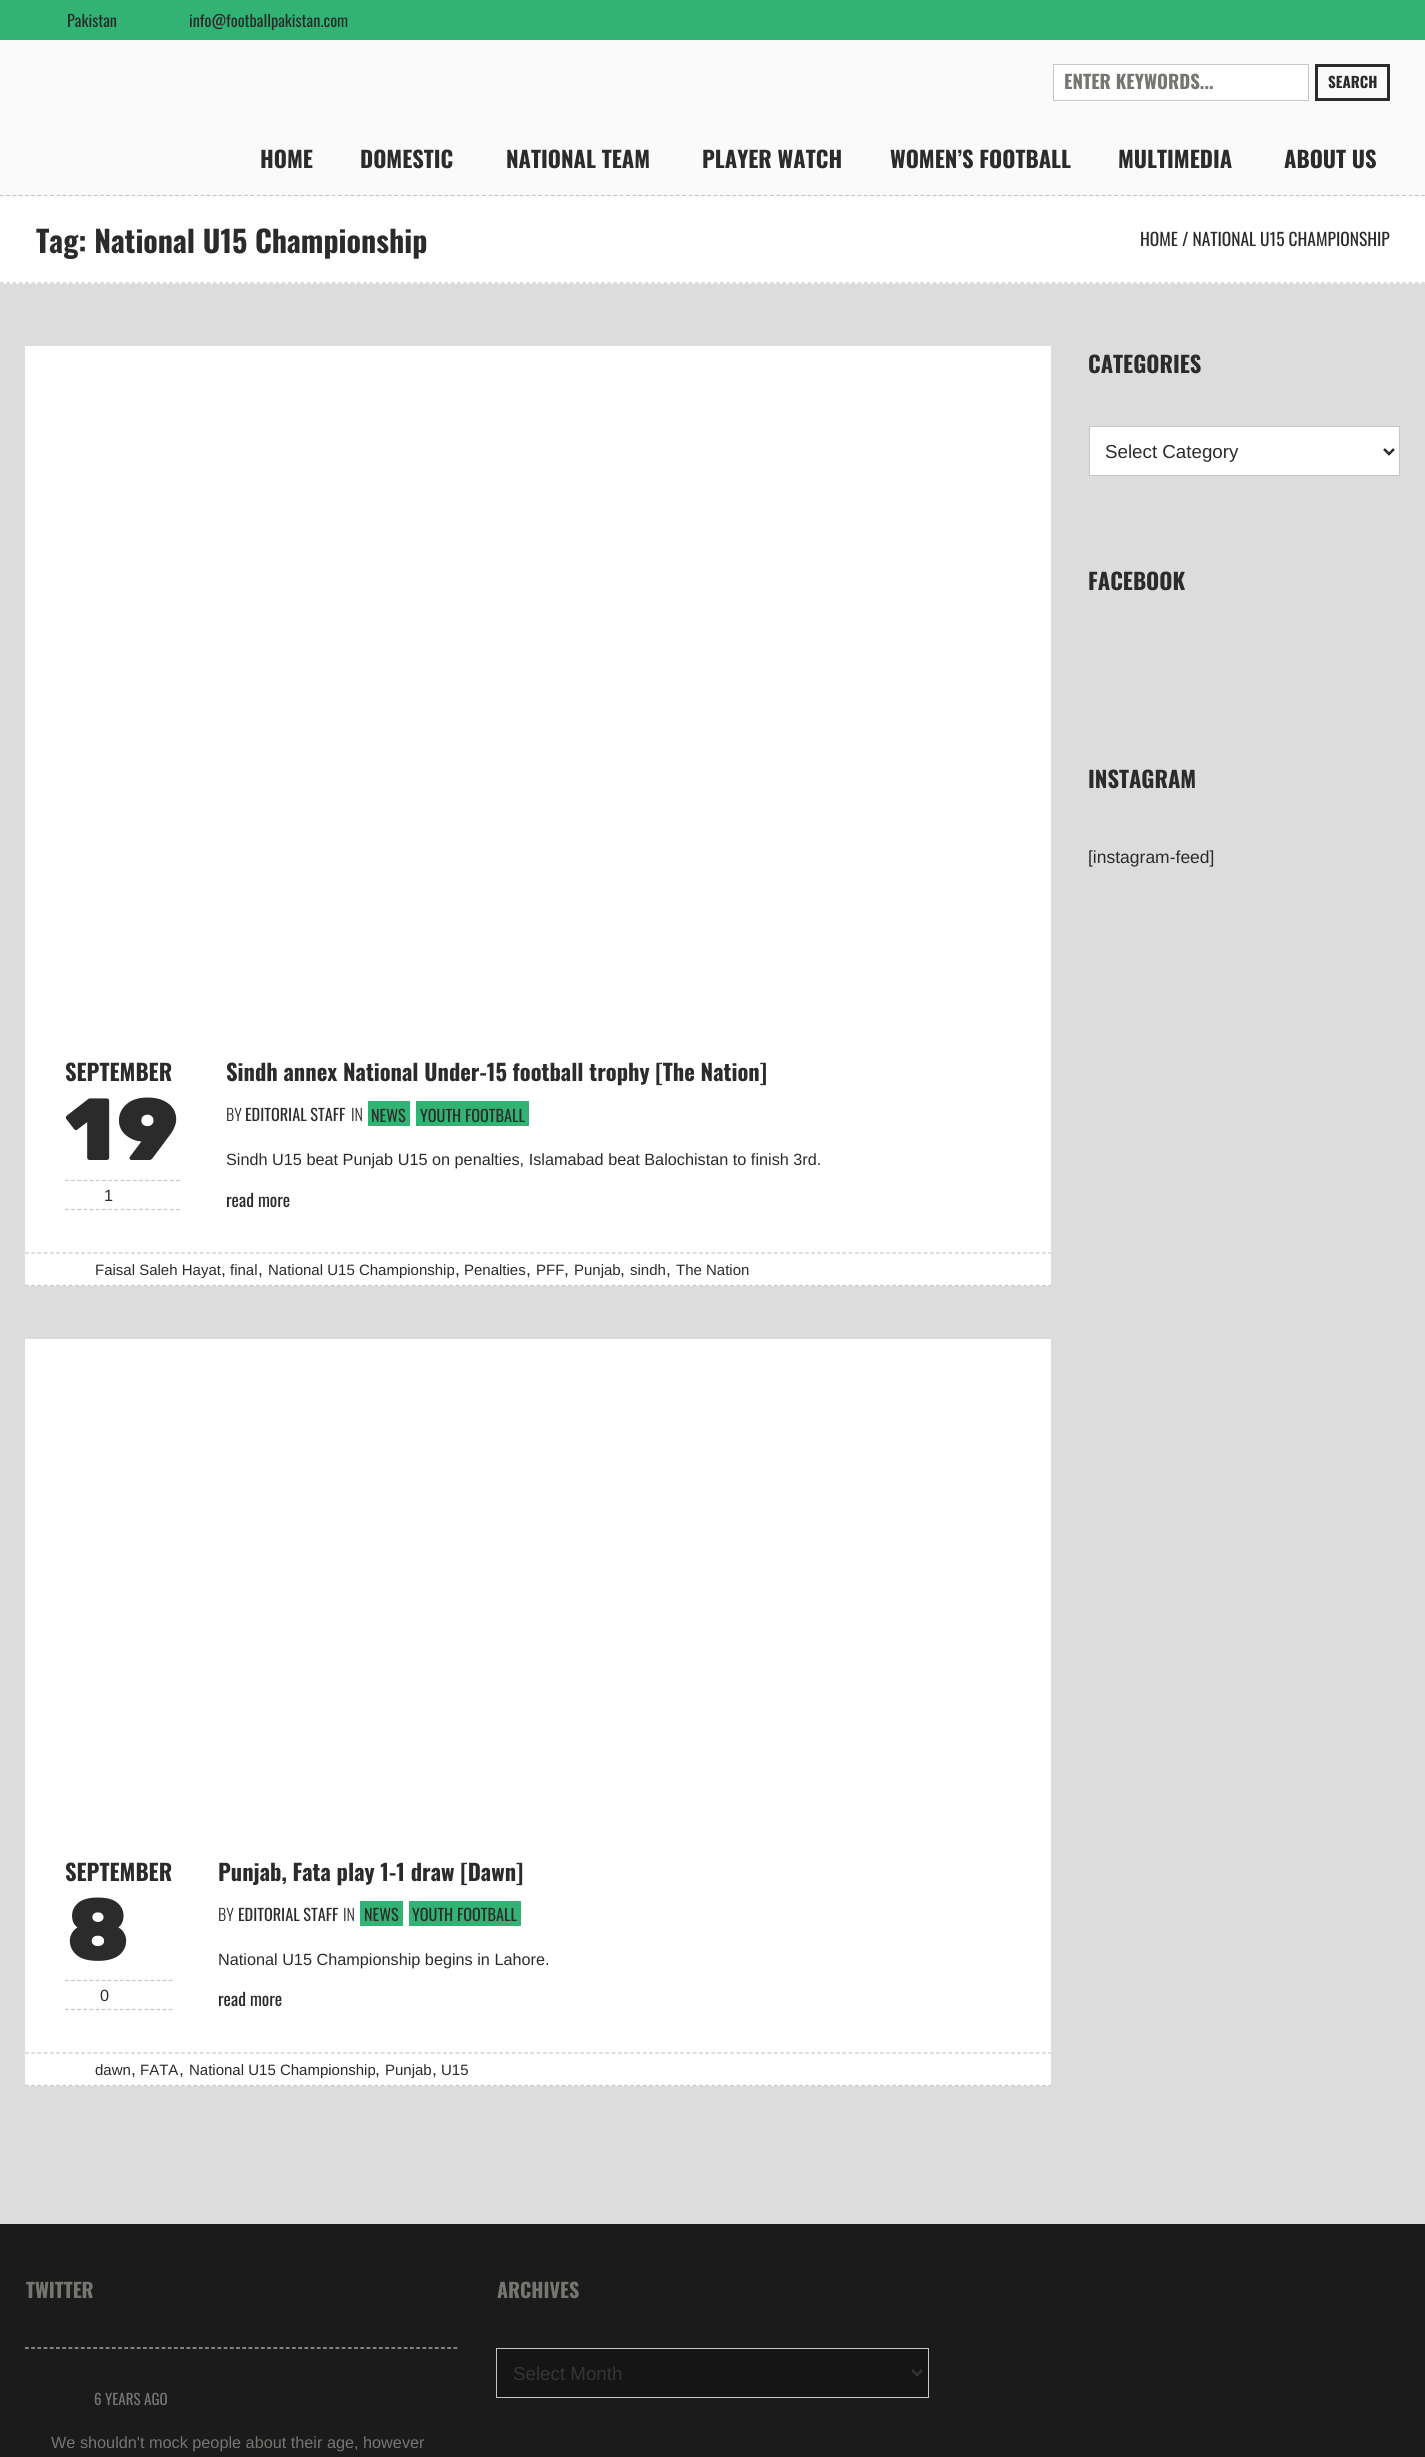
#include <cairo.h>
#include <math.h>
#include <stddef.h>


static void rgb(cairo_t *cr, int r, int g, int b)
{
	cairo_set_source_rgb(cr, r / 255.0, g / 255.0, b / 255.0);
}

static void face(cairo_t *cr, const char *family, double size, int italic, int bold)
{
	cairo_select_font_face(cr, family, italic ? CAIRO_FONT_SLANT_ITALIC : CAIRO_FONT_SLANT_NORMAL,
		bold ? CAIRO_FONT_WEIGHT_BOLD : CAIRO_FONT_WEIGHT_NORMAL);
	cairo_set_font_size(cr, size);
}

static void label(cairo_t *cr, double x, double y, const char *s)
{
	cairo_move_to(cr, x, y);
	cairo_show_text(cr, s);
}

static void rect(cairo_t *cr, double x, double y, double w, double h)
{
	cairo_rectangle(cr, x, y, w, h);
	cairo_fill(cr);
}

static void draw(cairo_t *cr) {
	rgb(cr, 220, 220, 220);
	cairo_paint(cr);
	rgb(cr, 50, 179, 115);
	rect(cr, 0, 0, 1425, 40);
	face(cr, "Oswald", 16.25, 0, 0);
	rgb(cr, 43, 43, 43);
	label(cr, 67, 27, "Pakistan");
	label(cr, 189, 27, "info@footballpakistan.com");
	rgb(cr, 250, 250, 250);
	rect(cr, 0, 40, 1425, 156);
	rgb(cr, 255, 255, 255);
	rect(cr, 0, 196, 1425, 88);
	cairo_new_path(cr);
	cairo_move_to(cr, 0, 195.5);
	cairo_line_to(cr, 1425, 195.5);
	rgb(cr, 201, 198, 198);
	cairo_set_line_width(cr, 1.2);
	cairo_set_dash(cr, (double[]){3.75, 2.51}, 2, 0);
	cairo_stroke(cr);
	rgb(cr, 255, 255, 255);
	cairo_rectangle(cr, 1053.5, 64.5, 255, 36);
	cairo_fill_preserve(cr);
	rgb(cr, 201, 198, 198);
	cairo_set_line_width(cr, 1);
	cairo_set_dash(cr, NULL, 0, 0);
	cairo_stroke(cr);
	face(cr, "Oswald", 18.75, 0, 1);
	rgb(cr, 118, 117, 114);
	label(cr, 1064, 89, "ENTER KEYWORDS...");
	cairo_rectangle(cr, 1316.5, 65.5, 72, 34);
	rgb(cr, 43, 43, 43);
	cairo_set_line_width(cr, 3);
	cairo_stroke(cr);
	face(cr, "Oswald", 15, 0, 1);
	label(cr, 1328, 88, "SEARCH");
	face(cr, "Oswald", 22.5, 0, 1);
	label(cr, 260, 168, "HOME");
	label(cr, 360, 168, "DOMESTIC");
	label(cr, 506, 168, "NATIONAL TEAM");
	label(cr, 702, 168, "PLAYER WATCH");
	label(cr, 890, 168, "WOMEN’S FOOTBALL");
	label(cr, 1118, 168, "MULTIMEDIA");
	label(cr, 1284, 168, "ABOUT US");
	cairo_new_path(cr);
	cairo_move_to(cr, 0, 283);
	cairo_line_to(cr, 1425, 283);
	rgb(cr, 201, 198, 198);
	cairo_set_line_width(cr, 1.2);
	cairo_set_dash(cr, (double[]){3.75, 2.51}, 2, 0);
	cairo_stroke(cr);
	face(cr, "Oswald", 30, 0, 1);
	rgb(cr, 43, 43, 43);
	label(cr, 36, 253, "Tag: National U15 Championship");
	face(cr, "Oswald", 17.5, 0, 0);
	label(cr, 1140, 246, "HOME / NATIONAL U15 CHAMPIONSHIP");
	face(cr, "Oswald", 22.5, 0, 1);
	label(cr, 1088, 373, "CATEGORIES");
	rgb(cr, 255, 255, 255);
	cairo_rectangle(cr, 1089.5, 426.5, 310, 49);
	cairo_fill_preserve(cr);
	rgb(cr, 201, 198, 198);
	cairo_set_line_width(cr, 1);
	cairo_set_dash(cr, NULL, 0, 0);
	cairo_stroke(cr);
	cairo_new_path(cr);
	cairo_move_to(cr, 1384, 449);
	cairo_line_to(cr, 1389, 454);
	cairo_line_to(cr, 1394, 449);
	rgb(cr, 43, 43, 43);
	cairo_set_line_width(cr, 2.5);
	cairo_stroke(cr);
	face(cr, "Liberation Sans", 18.75, 0, 0);
	label(cr, 1105, 458, "Select Category");
	face(cr, "Oswald", 22.5, 0, 1);
	label(cr, 1088, 590, "FACEBOOK");
	label(cr, 1088, 788, "INSTAGRAM");
	face(cr, "Liberation Sans", 17.5, 0, 0);
	label(cr, 1088, 863, "[instagram-feed]");
	rgb(cr, 255, 255, 255);
	rect(cr, 25, 346, 1026, 940);
	cairo_save(cr);
	cairo_rectangle(cr, 25, 346, 1026, 940);
	cairo_clip(cr);
	cairo_new_path(cr);
	cairo_move_to(cr, 25, 1285.5);
	cairo_line_to(cr, 1051, 1285.5);
	rgb(cr, 201, 198, 198);
	cairo_set_line_width(cr, 1.2);
	cairo_set_dash(cr, (double[]){3.75, 2.49}, 2, 0);
	cairo_stroke(cr);
	cairo_restore(cr);
	face(cr, "Oswald", 22.5, 0, 1);
	rgb(cr, 43, 43, 43);
	label(cr, 65, 1081, "SEPTEMBER");
	face(cr, "Rubik One", 88, 0, 0);
	label(cr, 65, 1160, "19");
	cairo_new_path(cr);
	cairo_move_to(cr, 65, 1180.5);
	cairo_line_to(cr, 180, 1180.5);
	rgb(cr, 201, 198, 198);
	cairo_set_line_width(cr, 1.2);
	cairo_set_dash(cr, (double[]){3.75, 2.42}, 2, 0);
	cairo_stroke(cr);
	cairo_new_path(cr);
	cairo_move_to(cr, 65, 1209.5);
	cairo_line_to(cr, 180, 1209.5);
	cairo_stroke(cr);
	face(cr, "Liberation Sans", 16.25, 0, 0);
	rgb(cr, 43, 43, 43);
	label(cr, 104, 1201, "1");
	face(cr, "Oswald", 22.5, 0, 1);
	label(cr, 226, 1081, "Sindh annex National Under-15 football trophy [The Nation]");
	face(cr, "Oswald Light", 16.25, 0, 0);
	label(cr, 226, 1121, "BY");
	face(cr, "Oswald", 16.25, 0, 0);
	label(cr, 245, 1121, "EDITORIAL STAFF");
	face(cr, "Oswald Light", 16.25, 0, 0);
	label(cr, 351, 1121, "IN");
	rgb(cr, 50, 179, 115);
	rect(cr, 368, 1101, 42, 25);
	face(cr, "Oswald", 16.25, 0, 0);
	rgb(cr, 43, 43, 43);
	label(cr, 371, 1122, "NEWS");
	rgb(cr, 50, 179, 115);
	rect(cr, 416, 1101, 113, 25);
	rgb(cr, 43, 43, 43);
	label(cr, 420, 1122, "YOUTH FOOTBALL");
	face(cr, "Liberation Sans", 16.25, 0, 0);
	label(cr, 226, 1165, "Sindh U15 beat Punjab U15 on penalties, Islamabad beat Balochistan to finish 3rd.");
	face(cr, "Oswald", 17.5, 0, 0);
	label(cr, 226, 1207, "read more");
	cairo_new_path(cr);
	cairo_move_to(cr, 25, 1253);
	cairo_line_to(cr, 1051, 1253);
	rgb(cr, 201, 198, 198);
	cairo_set_dash(cr, (double[]){3.75, 2.49}, 2, 0);
	cairo_stroke(cr);
	face(cr, "Liberation Sans", 15, 0, 0);
	rgb(cr, 43, 43, 43);
	label(cr, 95, 1275, "Faisal Saleh Hayat");
	face(cr, "Liberation Sans", 17.5, 0, 0);
	label(cr, 221, 1275, ",");
	face(cr, "Liberation Sans", 15, 0, 0);
	label(cr, 230, 1275, "final");
	face(cr, "Liberation Sans", 17.5, 0, 0);
	label(cr, 258, 1275, ",");
	face(cr, "Liberation Sans", 15, 0, 0);
	label(cr, 268, 1275, "National U15 Championship");
	face(cr, "Liberation Sans", 17.5, 0, 0);
	label(cr, 455, 1275, ",");
	face(cr, "Liberation Sans", 15, 0, 0);
	label(cr, 464, 1275, "Penalties");
	face(cr, "Liberation Sans", 17.5, 0, 0);
	label(cr, 526, 1275, ",");
	face(cr, "Liberation Sans", 15, 0, 0);
	label(cr, 536, 1275, "PFF");
	face(cr, "Liberation Sans", 17.5, 0, 0);
	label(cr, 564, 1275, ",");
	face(cr, "Liberation Sans", 15, 0, 0);
	label(cr, 574, 1275, "Punjab");
	face(cr, "Liberation Sans", 17.5, 0, 0);
	label(cr, 620, 1275, ",");
	face(cr, "Liberation Sans", 15, 0, 0);
	label(cr, 630, 1275, "sindh");
	face(cr, "Liberation Sans", 17.5, 0, 0);
	label(cr, 666, 1275, ",");
	face(cr, "Liberation Sans", 15, 0, 0);
	label(cr, 676, 1275, "The Nation");
	rgb(cr, 255, 255, 255);
	rect(cr, 25, 1339, 1026, 747);
	cairo_save(cr);
	cairo_rectangle(cr, 25, 1339, 1026, 747);
	cairo_clip(cr);
	cairo_new_path(cr);
	cairo_move_to(cr, 25, 2085.5);
	cairo_line_to(cr, 1051, 2085.5);
	rgb(cr, 201, 198, 198);
	cairo_stroke(cr);
	cairo_restore(cr);
	face(cr, "Oswald", 22.5, 0, 1);
	rgb(cr, 43, 43, 43);
	label(cr, 65, 1881, "SEPTEMBER");
	face(cr, "Rubik One", 88, 0, 0);
	label(cr, 65, 1960, "8");
	cairo_new_path(cr);
	cairo_move_to(cr, 65, 1980.5);
	cairo_line_to(cr, 172.5, 1980.5);
	rgb(cr, 201, 198, 198);
	cairo_set_dash(cr, (double[]){3.75, 2.35}, 2, 0);
	cairo_stroke(cr);
	cairo_new_path(cr);
	cairo_move_to(cr, 65, 2009.5);
	cairo_line_to(cr, 172.5, 2009.5);
	cairo_stroke(cr);
	face(cr, "Liberation Sans", 16.25, 0, 0);
	rgb(cr, 43, 43, 43);
	label(cr, 100, 2001, "0");
	face(cr, "Oswald", 22.5, 0, 1);
	label(cr, 218, 1881, "Punjab, Fata play 1-1 draw [Dawn]");
	face(cr, "Oswald Light", 16.25, 0, 0);
	label(cr, 218, 1921, "BY");
	face(cr, "Oswald", 16.25, 0, 0);
	label(cr, 238, 1921, "EDITORIAL STAFF");
	face(cr, "Oswald Light", 16.25, 0, 0);
	label(cr, 343, 1921, "IN");
	rgb(cr, 50, 179, 115);
	rect(cr, 360, 1901, 43, 25);
	face(cr, "Oswald", 16.25, 0, 0);
	rgb(cr, 43, 43, 43);
	label(cr, 364, 1921, "NEWS");
	rgb(cr, 50, 179, 115);
	rect(cr, 409, 1901, 112, 25);
	rgb(cr, 43, 43, 43);
	label(cr, 412, 1921, "YOUTH FOOTBALL");
	face(cr, "Liberation Sans", 16.25, 0, 0);
	label(cr, 218, 1965, "National U15 Championship begins in Lahore.");
	face(cr, "Oswald", 17.5, 0, 0);
	label(cr, 218, 2006, "read more");
	cairo_new_path(cr);
	cairo_move_to(cr, 25, 2053);
	cairo_line_to(cr, 1051, 2053);
	rgb(cr, 201, 198, 198);
	cairo_set_dash(cr, (double[]){3.75, 2.49}, 2, 0);
	cairo_stroke(cr);
	face(cr, "Liberation Sans", 15, 0, 0);
	rgb(cr, 43, 43, 43);
	label(cr, 95, 2075, "dawn");
	face(cr, "Liberation Sans", 17.5, 0, 0);
	label(cr, 131, 2075, ",");
	face(cr, "Liberation Sans", 15, 0, 0);
	label(cr, 140, 2075, "FATA");
	face(cr, "Liberation Sans", 17.5, 0, 0);
	label(cr, 179, 2075, ",");
	face(cr, "Liberation Sans", 15, 0, 0);
	label(cr, 189, 2075, "National U15 Championship");
	face(cr, "Liberation Sans", 17.5, 0, 0);
	label(cr, 375, 2075, ",");
	face(cr, "Liberation Sans", 15, 0, 0);
	label(cr, 385, 2075, "Punjab");
	face(cr, "Liberation Sans", 17.5, 0, 0);
	label(cr, 432, 2075, ",");
	face(cr, "Liberation Sans", 15, 0, 0);
	label(cr, 441, 2075, "U15");
	rgb(cr, 27, 27, 27);
	rect(cr, 0, 2224, 1425, 233);
	face(cr, "Oswald", 20, 0, 1);
	rgb(cr, 118, 117, 114);
	label(cr, 26, 2298, "TWITTER");
	cairo_new_path(cr);
	cairo_move_to(cr, 25, 2348);
	cairo_line_to(cr, 457.5, 2348);
	rgb(cr, 201, 198, 198);
	cairo_set_dash(cr, (double[]){3.75, 2.46}, 2, 0);
	cairo_stroke(cr);
	face(cr, "Oswald", 15, 0, 0);
	rgb(cr, 118, 117, 114);
	label(cr, 94, 2405, "6 YEARS AGO");
	face(cr, "Liberation Sans", 16.25, 0, 0);
	label(cr, 51, 2448, "We shouldn't mock people about their age, however");
	face(cr, "Oswald", 20, 0, 1);
	label(cr, 497, 2298, "ARCHIVES");
	rgb(cr, 21, 21, 21);
	cairo_rectangle(cr, 496.5, 2348.5, 432, 49);
	cairo_fill_preserve(cr);
	rgb(cr, 201, 198, 198);
	cairo_set_line_width(cr, 1);
	cairo_set_dash(cr, NULL, 0, 0);
	cairo_stroke(cr);
	cairo_new_path(cr);
	cairo_move_to(cr, 912, 2370);
	cairo_line_to(cr, 917, 2375);
	cairo_line_to(cr, 922, 2370);
	rgb(cr, 52, 52, 52);
	cairo_set_line_width(cr, 2.5);
	cairo_stroke(cr);
	face(cr, "Liberation Sans", 18.75, 0, 0);
	label(cr, 513, 2380, "Select Month");
}

int main(void) {
	cairo_surface_t *surface = cairo_image_surface_create(CAIRO_FORMAT_RGB24, 1425, 2457);
	cairo_t *cr = cairo_create(surface);
	cairo_font_options_t *options = cairo_font_options_create();
	cairo_font_options_set_hint_metrics(options, CAIRO_HINT_METRICS_OFF);
	cairo_font_options_set_hint_style(options, CAIRO_HINT_STYLE_NONE);
	cairo_set_font_options(cr, options);
	cairo_set_miter_limit(cr, 4);
	draw(cr);
	cairo_surface_write_to_png(surface, "render.png");
	cairo_font_options_destroy(options);
	cairo_destroy(cr);
	cairo_surface_destroy(surface);
	return 0;
}
